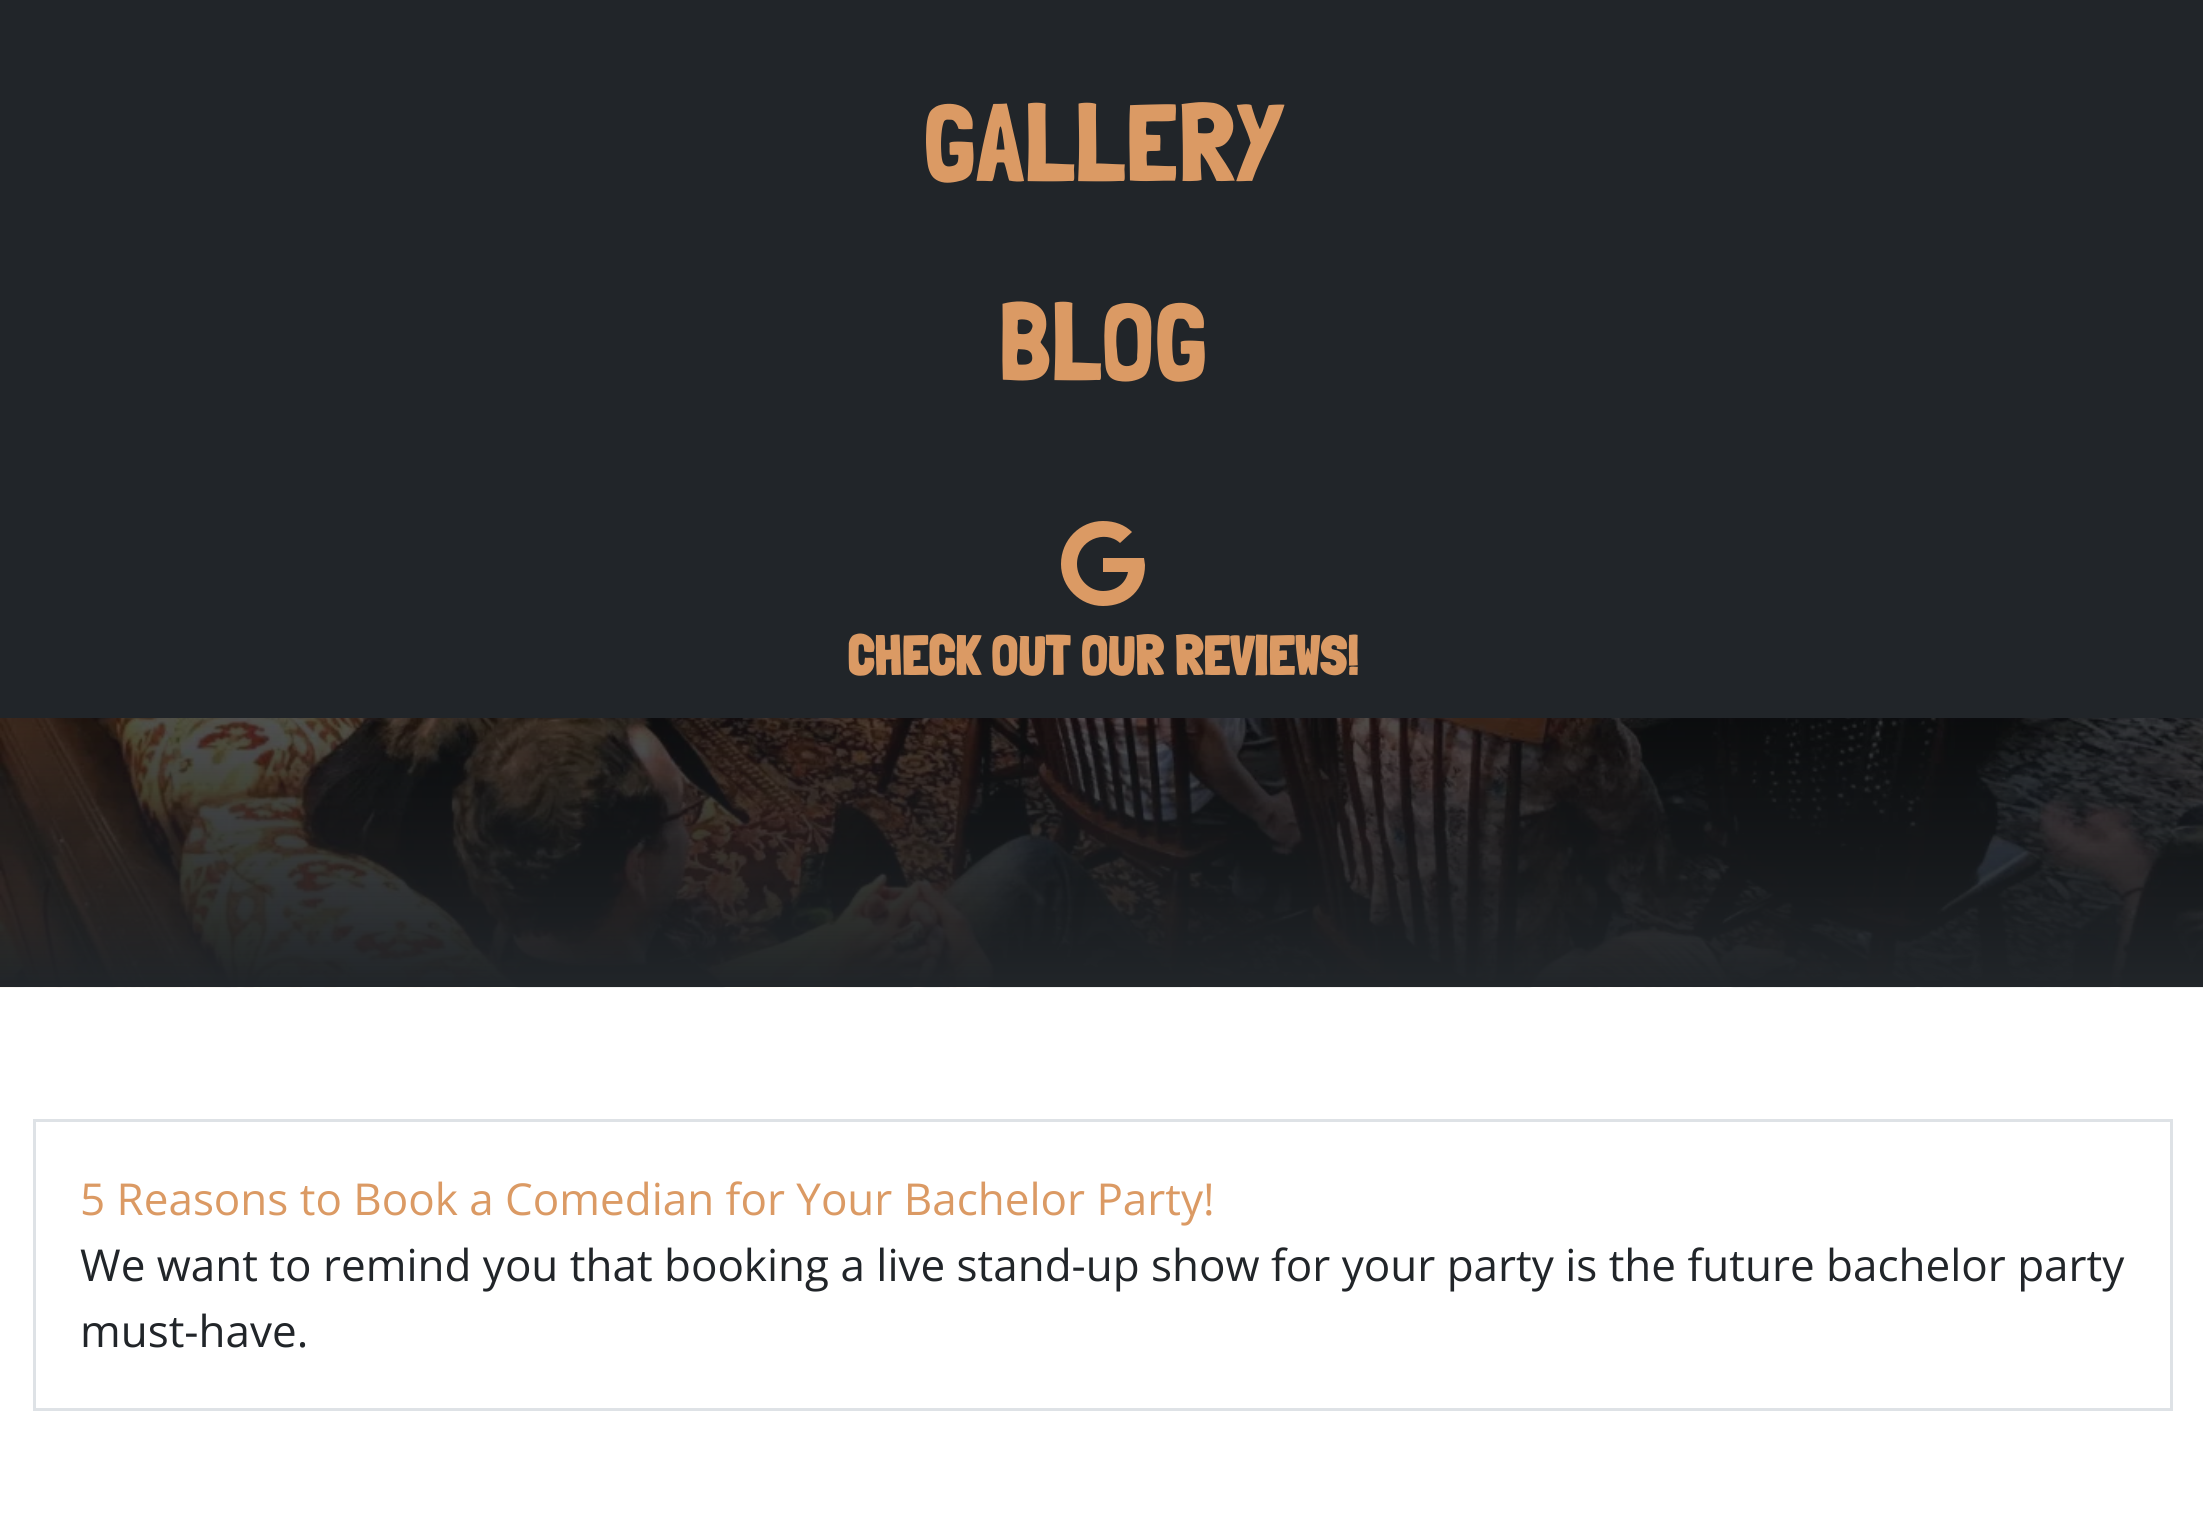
#include <cairo.h>
#include <math.h>
#include <stddef.h>


static void rgb(cairo_t *cr, int r, int g, int b)
{
	cairo_set_source_rgb(cr, r / 255.0, g / 255.0, b / 255.0);
}

static void face(cairo_t *cr, const char *family, double size, int italic, int bold)
{
	cairo_select_font_face(cr, family, italic ? CAIRO_FONT_SLANT_ITALIC : CAIRO_FONT_SLANT_NORMAL,
		bold ? CAIRO_FONT_WEIGHT_BOLD : CAIRO_FONT_WEIGHT_NORMAL);
	cairo_set_font_size(cr, size);
}

static void label(cairo_t *cr, double x, double y, const char *s)
{
	cairo_move_to(cr, x, y);
	cairo_show_text(cr, s);
}

static void rect(cairo_t *cr, double x, double y, double w, double h)
{
	cairo_rectangle(cr, x, y, w, h);
	cairo_fill(cr);
}

static void image(cairo_t *cr, const char *path, double x, double y, double w, double h)
{
	cairo_surface_t *image = cairo_image_surface_create_from_png(path);
	cairo_save(cr);
	cairo_set_source_surface(cr, image, x, y);
	cairo_rectangle(cr, x, y, w, h);
	cairo_fill(cr);
	cairo_restore(cr);
	cairo_surface_destroy(image);
}

static void draw(cairo_t *cr) {
	rgb(cr, 255, 255, 255);
	cairo_paint(cr);
	rgb(cr, 33, 37, 41);
	rect(cr, 0, 0, 2203, 718);
	face(cr, "Londrina Solid", 110, 0, 0);
	rgb(cr, 219, 154, 100);
	label(cr, 923, 181, "GALLERY");
	label(cr, 998, 380, "BLOG");
	cairo_new_path(cr);
	cairo_move_to(cr, 1145, 565);
	cairo_curve_to(cr, 1145, 589, 1128, 606, 1103, 606);
	cairo_curve_to(cr, 1080, 606, 1061, 587, 1061, 564);
	cairo_curve_to(cr, 1061, 540, 1080, 521, 1103, 521);
	cairo_curve_to(cr, 1115, 521, 1125, 525, 1132, 532);
	cairo_line_to(cr, 1120, 543);
	cairo_curve_to(cr, 1105, 529, 1077, 540, 1077, 564);
	cairo_curve_to(cr, 1077, 579, 1089, 591, 1103, 591);
	cairo_curve_to(cr, 1120, 591, 1127, 579, 1128, 572);
	cairo_line_to(cr, 1103, 572);
	cairo_line_to(cr, 1103, 558);
	cairo_line_to(cr, 1144, 558);
	cairo_close_path(cr);
	cairo_fill(cr);
	face(cr, "Londrina Solid", 55, 0, 1);
	label(cr, 847, 675, "CHECK OUT OUR REVIEWS!");
	image(cr, "image0.png", 0, 718, 2203, 270);
	cairo_rectangle(cr, 34.5, 1120.5, 2137, 289);
	rgb(cr, 222, 226, 230);
	cairo_set_line_width(cr, 3);
	cairo_stroke(cr);
	face(cr, "Open Sans", 44, 0, 0);
	rgb(cr, 219, 154, 100);
	label(cr, 80, 1215, "5 Reasons to Book a Comedian for Your Bachelor Party!");
	rgb(cr, 33, 37, 41);
	label(cr, 80, 1281, "We want to remind you that booking a live stand-up show for your party is the future bachelor party");
	label(cr, 80, 1347, "must-have.");
}

int main(void) {
	cairo_surface_t *surface = cairo_image_surface_create(CAIRO_FORMAT_RGB24, 2203, 1515);
	cairo_t *cr = cairo_create(surface);
	cairo_font_options_t *options = cairo_font_options_create();
	cairo_font_options_set_hint_metrics(options, CAIRO_HINT_METRICS_OFF);
	cairo_font_options_set_hint_style(options, CAIRO_HINT_STYLE_NONE);
	cairo_set_font_options(cr, options);
	cairo_set_miter_limit(cr, 4);
	draw(cr);
	cairo_surface_write_to_png(surface, "render.png");
	cairo_font_options_destroy(options);
	cairo_destroy(cr);
	cairo_surface_destroy(surface);
	return 0;
}
